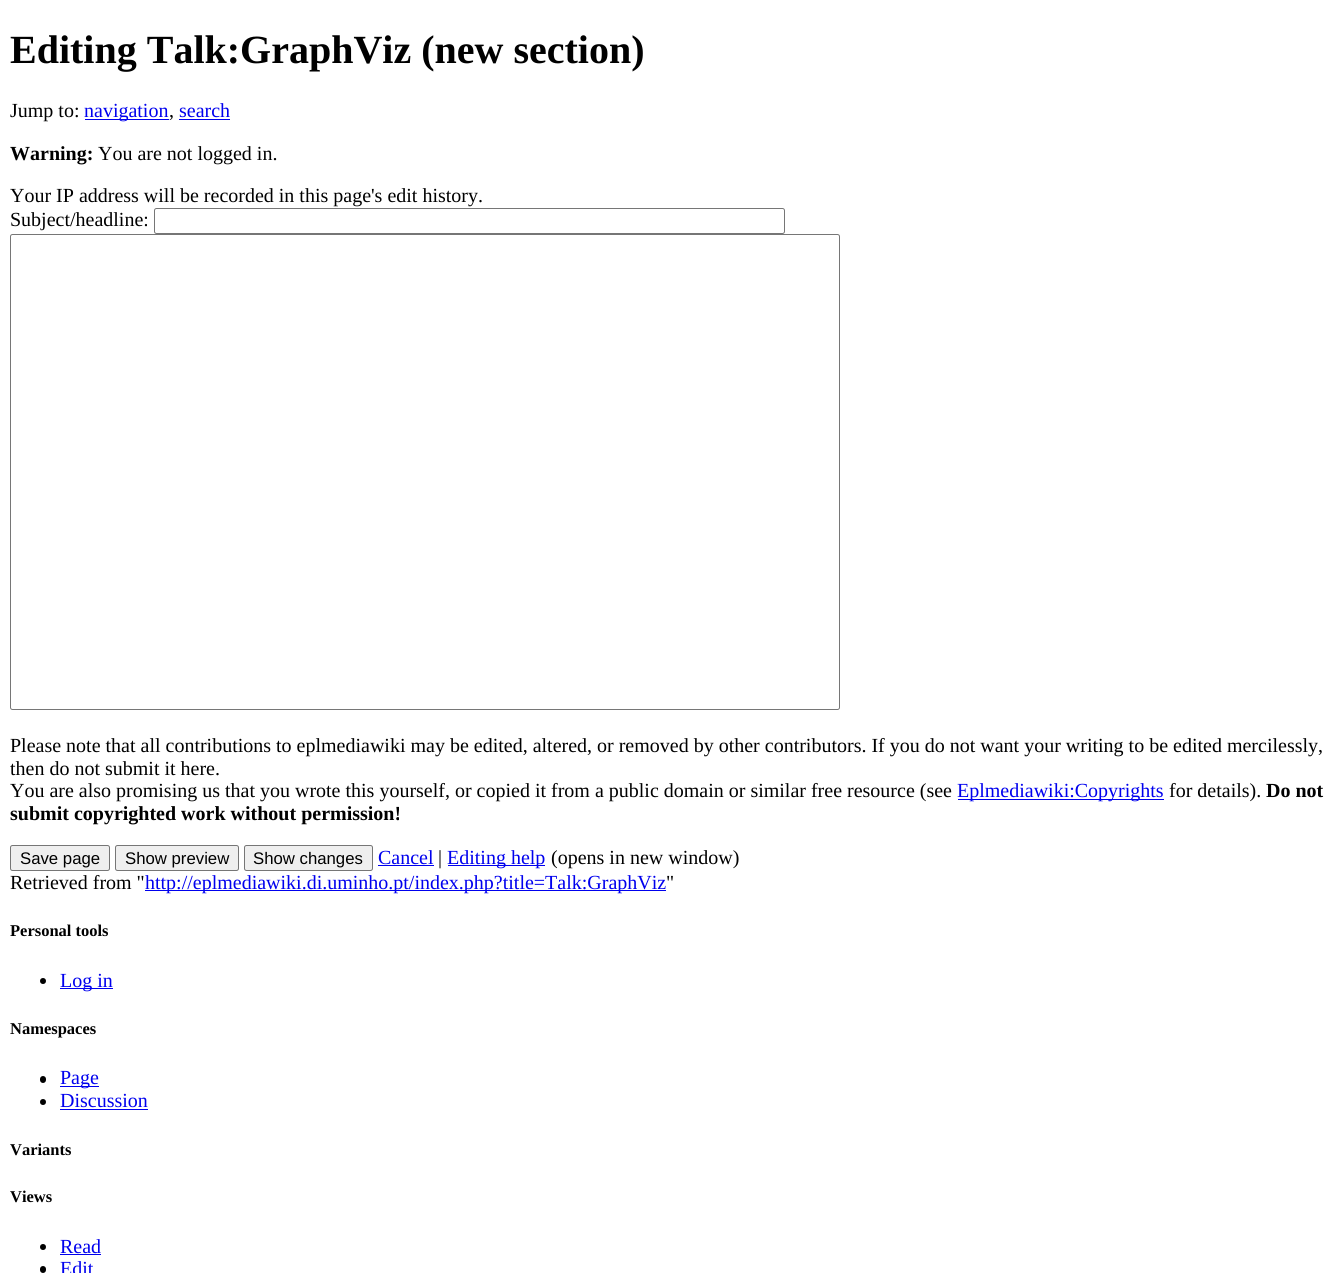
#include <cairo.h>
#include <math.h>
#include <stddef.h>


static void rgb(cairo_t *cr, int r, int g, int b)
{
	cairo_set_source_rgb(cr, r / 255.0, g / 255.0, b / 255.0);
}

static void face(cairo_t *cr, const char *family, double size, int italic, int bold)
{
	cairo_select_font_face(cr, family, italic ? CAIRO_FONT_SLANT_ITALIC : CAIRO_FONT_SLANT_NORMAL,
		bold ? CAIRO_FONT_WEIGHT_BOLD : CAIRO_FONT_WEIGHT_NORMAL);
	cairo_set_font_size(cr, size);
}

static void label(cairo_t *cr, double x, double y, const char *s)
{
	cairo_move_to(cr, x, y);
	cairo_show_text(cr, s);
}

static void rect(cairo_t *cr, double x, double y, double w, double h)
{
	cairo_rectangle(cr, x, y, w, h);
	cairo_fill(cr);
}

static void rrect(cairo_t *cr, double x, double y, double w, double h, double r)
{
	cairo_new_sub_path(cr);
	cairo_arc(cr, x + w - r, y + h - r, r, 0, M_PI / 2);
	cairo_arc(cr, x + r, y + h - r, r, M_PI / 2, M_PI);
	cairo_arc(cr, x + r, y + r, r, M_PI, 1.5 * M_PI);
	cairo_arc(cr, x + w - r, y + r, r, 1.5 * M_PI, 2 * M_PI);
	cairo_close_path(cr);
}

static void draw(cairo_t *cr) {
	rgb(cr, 255, 255, 255);
	cairo_paint(cr);
	face(cr, "Liberation Serif", 40, 0, 1);
	rgb(cr, 0, 0, 0);
	label(cr, 10, 63, "Editing Talk:GraphViz (new section)");
	face(cr, "Liberation Serif", 20, 0, 0);
	label(cr, 10, 117, "Jump to:");
	rgb(cr, 0, 0, 238);
	rect(cr, 85, 119, 84, 1);
	label(cr, 84, 117, "navigation");
	rgb(cr, 0, 0, 0);
	label(cr, 169, 117, ",");
	rgb(cr, 0, 0, 238);
	label(cr, 179, 117, "search");
	rect(cr, 179, 119, 51, 1);
	face(cr, "Liberation Serif", 20, 0, 1);
	rgb(cr, 0, 0, 0);
	label(cr, 10, 160, "Warning:");
	face(cr, "Liberation Serif", 20, 0, 0);
	label(cr, 98, 160, "You are not logged in.");
	label(cr, 10, 202, "Your IP address will be recorded in this page's edit history.");
	label(cr, 10, 226, "Subject/headline:");
	rrect(cr, 154.5, 208.5, 630, 25, 2);
	rgb(cr, 118, 118, 118);
	cairo_set_line_width(cr, 1);
	cairo_stroke(cr);
	rrect(cr, 10.5, 234.5, 829, 475, 2);
	cairo_stroke(cr);
	rgb(cr, 0, 0, 0);
	label(cr, 10, 752, "Please note that all contributions to eplmediawiki may be edited, altered, or removed by other contributors. If you do not want your writing to be edited mercilessly,");
	label(cr, 10, 775, "then do not submit it here.");
	label(cr, 10, 797, "You are also promising us that you wrote this yourself, or copied it from a public domain or similar free resource (see");
	rgb(cr, 0, 0, 238);
	rect(cr, 958, 799, 206, 1);
	label(cr, 957, 797, "Eplmediawiki:Copyrights");
	rgb(cr, 0, 0, 0);
	label(cr, 1169, 797, "for details).");
	face(cr, "Liberation Serif", 20, 0, 1);
	label(cr, 1266, 797, "Do not");
	label(cr, 10, 820, "submit copyrighted work without permission!");
	rgb(cr, 239, 239, 239);
	rrect(cr, 10.5, 845.5, 99, 25, 2);
	cairo_fill_preserve(cr);
	rgb(cr, 118, 118, 118);
	cairo_stroke(cr);
	face(cr, "Liberation Sans", 16.75, 0, 0);
	rgb(cr, 0, 0, 0);
	label(cr, 20, 864, "Save page");
	rgb(cr, 239, 239, 239);
	rrect(cr, 115.5, 845.5, 123, 25, 2);
	cairo_fill_preserve(cr);
	rgb(cr, 118, 118, 118);
	cairo_stroke(cr);
	rgb(cr, 0, 0, 0);
	label(cr, 125, 864, "Show preview");
	rgb(cr, 239, 239, 239);
	rrect(cr, 244.5, 845.5, 128, 25, 2);
	cairo_fill_preserve(cr);
	rgb(cr, 118, 118, 118);
	cairo_stroke(cr);
	rgb(cr, 0, 0, 0);
	label(cr, 253, 864, "Show changes");
	face(cr, "Liberation Serif", 20, 0, 0);
	rgb(cr, 0, 0, 238);
	label(cr, 378, 864, "Cancel");
	rect(cr, 378, 865, 56, 1);
	rgb(cr, 0, 0, 0);
	label(cr, 438, 864, "|");
	rgb(cr, 0, 0, 238);
	rect(cr, 448, 865, 97, 1);
	label(cr, 447, 864, "Editing help");
	rgb(cr, 0, 0, 0);
	label(cr, 551, 864, "(opens in new window)");
	label(cr, 10, 889, "Retrieved from \"");
	rgb(cr, 0, 0, 238);
	rect(cr, 145, 890, 521, 1);
	label(cr, 145, 889, "http://eplmediawiki.di.uminho.pt/index.php?title=Talk:GraphViz");
	rgb(cr, 0, 0, 0);
	label(cr, 666, 889, "\"");
	face(cr, "Liberation Serif", 16.5, 0, 1);
	label(cr, 10, 936, "Personal tools");
	cairo_new_path(cr);
	cairo_arc(cr, 43, 981, 3, 0, 2 * M_PI);
	cairo_fill(cr);
	rgb(cr, 0, 0, 238);
	rect(cr, 60, 988, 53, 1);
	face(cr, "Liberation Serif", 20, 0, 0);
	label(cr, 60, 987, "Log in");
	face(cr, "Liberation Serif", 16.5, 0, 1);
	rgb(cr, 0, 0, 0);
	label(cr, 10, 1034, "Namespaces");
	rrect(cr, 40, 1076, 6, 7, 3);
	cairo_fill(cr);
	rgb(cr, 0, 0, 238);
	rect(cr, 60, 1086, 39, 1);
	face(cr, "Liberation Serif", 20, 0, 0);
	label(cr, 60, 1084, "Page");
	rgb(cr, 0, 0, 0);
	cairo_new_path(cr);
	cairo_arc(cr, 43, 1102, 3, 0, 2 * M_PI);
	cairo_fill(cr);
	rgb(cr, 0, 0, 238);
	label(cr, 60, 1107, "Discussion");
	rect(cr, 60, 1109, 88, 1);
	face(cr, "Liberation Serif", 16.5, 0, 1);
	rgb(cr, 0, 0, 0);
	label(cr, 10, 1155, "Variants");
	label(cr, 10, 1202, "Views");
	cairo_new_path(cr);
	cairo_arc(cr, 43, 1247, 3, 0, 2 * M_PI);
	cairo_fill(cr);
	face(cr, "Liberation Serif", 20, 0, 0);
	rgb(cr, 0, 0, 238);
	label(cr, 60, 1253, "Read");
	rect(cr, 60, 1254, 41, 1);
	rgb(cr, 0, 0, 0);
	rrect(cr, 40, 1266, 6, 7, 3);
	cairo_fill(cr);
	rgb(cr, 0, 0, 238);
	label(cr, 60, 1275, "Edit");
}

int main(void) {
	cairo_surface_t *surface = cairo_image_surface_create(CAIRO_FORMAT_RGB24, 1336, 1273);
	cairo_t *cr = cairo_create(surface);
	cairo_font_options_t *options = cairo_font_options_create();
	cairo_font_options_set_hint_metrics(options, CAIRO_HINT_METRICS_OFF);
	cairo_font_options_set_hint_style(options, CAIRO_HINT_STYLE_NONE);
	cairo_set_font_options(cr, options);
	cairo_set_miter_limit(cr, 4);
	draw(cr);
	cairo_surface_write_to_png(surface, "render.png");
	cairo_font_options_destroy(options);
	cairo_destroy(cr);
	cairo_surface_destroy(surface);
	return 0;
}
